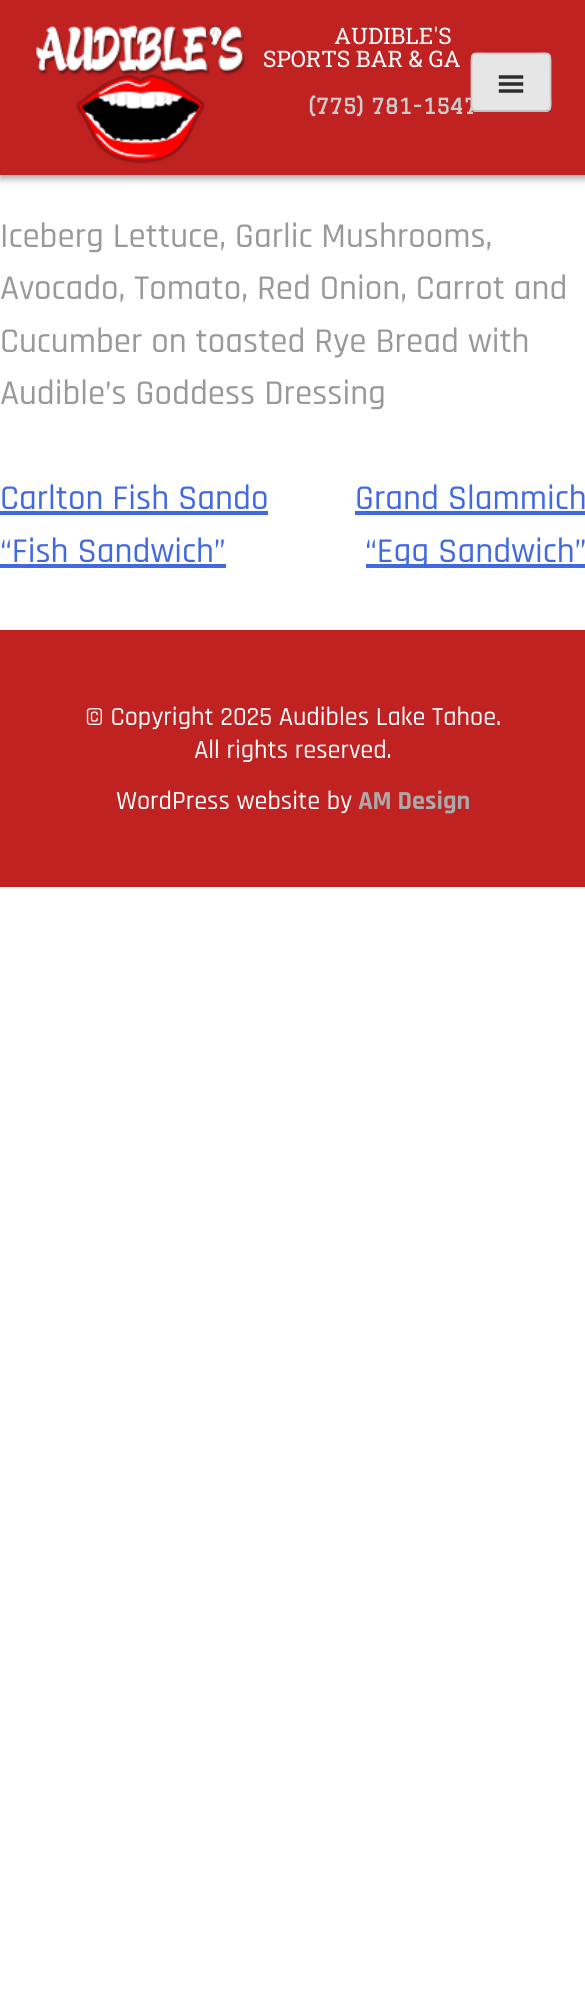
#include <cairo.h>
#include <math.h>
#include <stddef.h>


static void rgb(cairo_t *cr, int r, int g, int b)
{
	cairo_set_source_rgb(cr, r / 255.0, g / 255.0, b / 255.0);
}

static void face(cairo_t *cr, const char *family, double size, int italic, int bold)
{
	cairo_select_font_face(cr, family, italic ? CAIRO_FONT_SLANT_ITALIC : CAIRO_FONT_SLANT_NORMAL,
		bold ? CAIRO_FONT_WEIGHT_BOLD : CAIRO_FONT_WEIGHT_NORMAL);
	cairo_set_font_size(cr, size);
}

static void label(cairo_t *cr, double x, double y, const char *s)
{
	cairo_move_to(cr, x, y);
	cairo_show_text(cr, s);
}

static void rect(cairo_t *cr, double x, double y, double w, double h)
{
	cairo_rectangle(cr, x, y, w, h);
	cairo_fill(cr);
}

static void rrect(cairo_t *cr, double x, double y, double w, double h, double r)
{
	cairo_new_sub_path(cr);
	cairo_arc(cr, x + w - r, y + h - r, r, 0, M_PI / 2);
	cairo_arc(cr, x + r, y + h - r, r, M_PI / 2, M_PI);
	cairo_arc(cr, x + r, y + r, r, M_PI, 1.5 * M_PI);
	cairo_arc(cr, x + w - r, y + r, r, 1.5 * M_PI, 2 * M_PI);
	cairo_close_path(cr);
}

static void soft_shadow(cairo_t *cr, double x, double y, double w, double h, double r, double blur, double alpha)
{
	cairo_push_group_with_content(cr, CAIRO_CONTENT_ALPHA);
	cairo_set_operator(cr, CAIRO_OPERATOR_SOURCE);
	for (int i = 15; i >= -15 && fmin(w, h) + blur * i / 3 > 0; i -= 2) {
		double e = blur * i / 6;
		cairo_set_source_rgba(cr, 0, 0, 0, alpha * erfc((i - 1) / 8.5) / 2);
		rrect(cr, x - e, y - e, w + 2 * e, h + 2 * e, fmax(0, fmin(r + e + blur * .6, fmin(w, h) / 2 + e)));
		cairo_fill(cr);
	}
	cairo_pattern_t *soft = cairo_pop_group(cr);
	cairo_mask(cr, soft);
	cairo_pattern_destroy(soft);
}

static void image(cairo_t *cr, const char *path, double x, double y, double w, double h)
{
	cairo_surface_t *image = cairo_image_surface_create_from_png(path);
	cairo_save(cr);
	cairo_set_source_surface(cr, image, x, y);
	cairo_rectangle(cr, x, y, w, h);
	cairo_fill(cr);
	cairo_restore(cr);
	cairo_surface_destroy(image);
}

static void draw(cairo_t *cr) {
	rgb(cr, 255, 255, 255);
	cairo_paint(cr);
	rgb(cr, 0, 0, 0);
	soft_shadow(cr, 0, 4, 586, 175, 0, 3.5, 0.33);
	rgb(cr, 192, 33, 33);
	rect(cr, 0, 0, 585, 175);
	image(cr, "image0.png", 36, 25, 209, 139);
	face(cr, "Roboto Slab", 22.75, 0, 0);
	rgb(cr, 255, 255, 255);
	label(cr, 334, 44, "AUDIBLE'S");
	label(cr, 263, 67, "SPORTS BAR & GA");
	face(cr, "Graduate", 21, 0, 1);
	rgb(cr, 204, 204, 204);
	label(cr, 308, 114, "(775) 781-1547");
	rgb(cr, 230, 230, 230);
	rrect(cr, 471, 53, 80, 59, 5);
	cairo_fill(cr);
	cairo_new_path(cr);
	cairo_move_to(cr, 549, 110);
	cairo_line_to(cr, 546.5, 111);
	cairo_line_to(cr, 475.5, 111);
	cairo_line_to(cr, 473, 110);
	rgb(cr, 187, 187, 187);
	cairo_set_line_width(cr, 1.8);
	cairo_stroke(cr);
	cairo_new_path(cr);
	cairo_move_to(cr, 473, 110);
	cairo_curve_to(cr, 470.5, 107.5, 471.5, 100.5, 471.5, 98.5);
	cairo_line_to(cr, 471.5, 66);
	cairo_curve_to(cr, 471.5, 51, 471.5, 53.5, 487.5, 53.5);
	cairo_line_to(cr, 534.5, 53.5);
	cairo_curve_to(cr, 550.5, 53.5, 550.5, 51, 550.5, 66);
	cairo_line_to(cr, 550.5, 98.5);
	cairo_curve_to(cr, 550.5, 100.5, 551.5, 107.5, 549, 110);
	rgb(cr, 204, 204, 204);
	cairo_stroke(cr);
	image(cr, "image1.png", 498, 75, 26, 18);
	face(cr, "Rajdhani Medium", 35, 0, 0);
	rgb(cr, 153, 153, 153);
	label(cr, 0, 247, "Iceberg Lettuce, Garlic Mushrooms,");
	label(cr, 0, 299, "Avocado, Tomato, Red Onion, Carrot and");
	label(cr, 0, 352, "Cucumber on toasted Rye Bread with");
	label(cr, 0, 404, "Audible’s Goddess Dressing");
	rgb(cr, 65, 105, 225);
	label(cr, 0, 509, "Carlton Fish Sando");
	rect(cr, 0, 511, 268, 4);
	label(cr, 0, 562, "“Fish Sandwich”");
	rect(cr, 0, 564, 226, 4);
	label(cr, 355, 509, "Grand Slammich");
	rect(cr, 355, 511, 230, 4);
	rect(cr, 366, 564, 219, 4);
	label(cr, 365, 562, "“Egg Sandwich”");
	rgb(cr, 192, 33, 33);
	rect(cr, 0, 630, 585, 257);
	face(cr, "Rajdhani Medium", 26.25, 0, 0);
	rgb(cr, 255, 255, 255);
	label(cr, 85, 725, "© Copyright 2025 Audibles Lake Tahoe.");
	label(cr, 194, 758, "All rights reserved.");
	label(cr, 116, 809, "WordPress website by");
	face(cr, "Rajdhani", 26.25, 0, 1);
	rgb(cr, 170, 170, 170);
	label(cr, 358, 809, "AM Design");
}

int main(void) {
	cairo_surface_t *surface = cairo_image_surface_create(CAIRO_FORMAT_RGB24, 585, 1999);
	cairo_t *cr = cairo_create(surface);
	cairo_font_options_t *options = cairo_font_options_create();
	cairo_font_options_set_hint_metrics(options, CAIRO_HINT_METRICS_OFF);
	cairo_font_options_set_hint_style(options, CAIRO_HINT_STYLE_NONE);
	cairo_set_font_options(cr, options);
	cairo_set_miter_limit(cr, 4);
	draw(cr);
	cairo_surface_write_to_png(surface, "render.png");
	cairo_font_options_destroy(options);
	cairo_destroy(cr);
	cairo_surface_destroy(surface);
	return 0;
}
